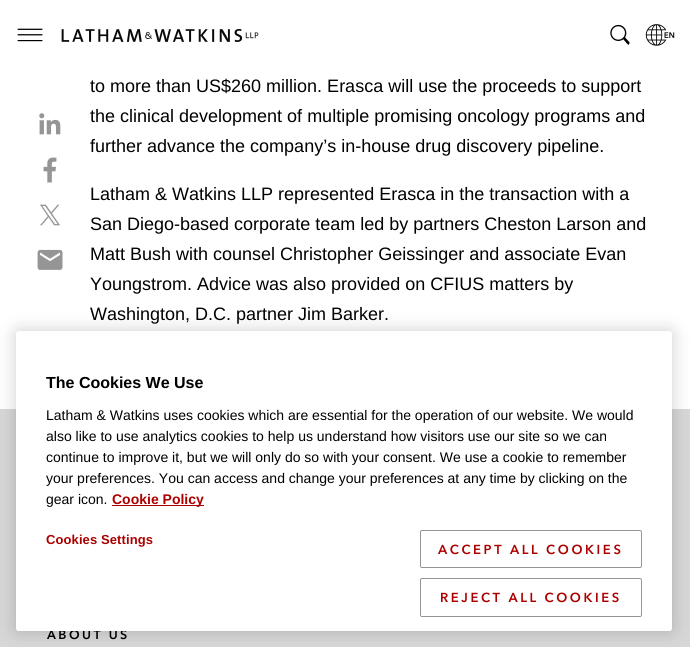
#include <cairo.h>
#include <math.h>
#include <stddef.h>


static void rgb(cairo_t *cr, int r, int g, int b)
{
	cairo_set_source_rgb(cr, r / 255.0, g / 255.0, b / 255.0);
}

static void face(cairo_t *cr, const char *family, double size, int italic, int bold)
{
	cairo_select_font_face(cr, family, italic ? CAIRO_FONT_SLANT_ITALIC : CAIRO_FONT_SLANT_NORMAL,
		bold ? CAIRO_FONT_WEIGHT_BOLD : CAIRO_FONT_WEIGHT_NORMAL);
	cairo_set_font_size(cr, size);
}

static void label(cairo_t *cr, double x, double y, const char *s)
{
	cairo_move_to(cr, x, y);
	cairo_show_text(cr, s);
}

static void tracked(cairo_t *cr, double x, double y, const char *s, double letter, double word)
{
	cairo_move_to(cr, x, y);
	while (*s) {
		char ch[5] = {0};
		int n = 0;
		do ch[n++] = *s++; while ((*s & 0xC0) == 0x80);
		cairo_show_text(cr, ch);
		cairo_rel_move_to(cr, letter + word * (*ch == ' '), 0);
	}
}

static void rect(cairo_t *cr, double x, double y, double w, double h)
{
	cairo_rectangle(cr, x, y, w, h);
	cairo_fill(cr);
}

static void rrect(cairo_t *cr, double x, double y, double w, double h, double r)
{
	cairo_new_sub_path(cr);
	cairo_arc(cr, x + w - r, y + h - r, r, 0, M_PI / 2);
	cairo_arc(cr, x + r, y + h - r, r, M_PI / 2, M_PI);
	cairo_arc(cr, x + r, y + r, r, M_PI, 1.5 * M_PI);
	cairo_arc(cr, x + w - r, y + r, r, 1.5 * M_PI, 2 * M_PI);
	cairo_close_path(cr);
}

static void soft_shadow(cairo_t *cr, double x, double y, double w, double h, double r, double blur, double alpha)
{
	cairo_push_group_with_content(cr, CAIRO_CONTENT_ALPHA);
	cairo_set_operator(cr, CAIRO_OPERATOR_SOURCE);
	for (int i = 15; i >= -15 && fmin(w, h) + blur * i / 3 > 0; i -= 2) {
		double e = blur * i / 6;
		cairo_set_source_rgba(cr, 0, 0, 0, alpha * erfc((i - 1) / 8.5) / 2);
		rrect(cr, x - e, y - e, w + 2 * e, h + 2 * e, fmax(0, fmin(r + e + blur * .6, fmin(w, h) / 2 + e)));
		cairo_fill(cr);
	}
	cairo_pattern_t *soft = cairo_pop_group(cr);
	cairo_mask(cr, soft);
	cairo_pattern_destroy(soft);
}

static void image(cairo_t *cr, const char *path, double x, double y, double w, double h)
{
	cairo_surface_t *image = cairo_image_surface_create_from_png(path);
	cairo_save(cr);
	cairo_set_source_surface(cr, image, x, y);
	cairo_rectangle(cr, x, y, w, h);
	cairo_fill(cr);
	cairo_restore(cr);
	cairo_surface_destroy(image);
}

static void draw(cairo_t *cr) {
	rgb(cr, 255, 255, 255);
	cairo_paint(cr);
	image(cr, "image0.png", 17, 28, 26, 14);
	image(cr, "image1.png", 61, 28, 198, 14);
	image(cr, "image2.png", 610, 24, 20, 21);
	image(cr, "image3.png", 645, 24, 30, 22);
	image(cr, "image4.png", 39, 113, 22, 22);
	image(cr, "image5.png", 43, 157, 14, 26);
	image(cr, "image6.png", 40, 204, 20, 22);
	image(cr, "image7.png", 37, 249, 26, 21);
	face(cr, "Liberation Sans", 18, 0, 0);
	rgb(cr, 0, 0, 0);
	label(cr, 90, 92, "to more than US$260 million. Erasca will use the proceeds to support");
	label(cr, 90, 122, "the clinical development of multiple promising oncology programs and");
	label(cr, 90, 152, "further advance the company’s in-house drug discovery pipeline.");
	label(cr, 90, 200, "Latham & Watkins LLP represented Erasca in the transaction with a");
	label(cr, 90, 230, "San Diego-based corporate team led by partners Cheston Larson and");
	label(cr, 90, 260, "Matt Bush with counsel Christopher Geissinger and associate Evan");
	label(cr, 90, 290, "Youngstrom. Advice was also provided on CFIUS matters by");
	label(cr, 90, 320, "Washington, D.C. partner Jim Barker.");
	rgb(cr, 215, 215, 215);
	rect(cr, 0, 409, 690, 238);
	rgb(cr, 0, 0, 0);
	soft_shadow(cr, 16, 331, 656, 300, 2.5, 9, 0.2);
	face(cr, "Avenir Next", 12.5, 0, 1);
	rgb(cr, 0, 0, 0);
	tracked(cr, 47, 639, "ABOUT US", 2.5, 0);
	rgb(cr, 255, 255, 255);
	rrect(cr, 16, 331, 656, 300, 2.5);
	cairo_fill(cr);
	face(cr, "Liberation Sans", 16, 0, 1);
	rgb(cr, 0, 0, 0);
	label(cr, 46, 388, "The Cookies We Use");
	face(cr, "Liberation Sans", 14, 0, 0);
	label(cr, 46, 420, "Latham & Watkins uses cookies which are essential for the operation of our website. We would");
	label(cr, 46, 441, "also like to use analytics cookies to help us understand how visitors use our site so we can");
	label(cr, 46, 462, "continue to improve it, but we will only do so with your consent. We use a cookie to remember");
	label(cr, 46, 483, "your preferences. You can access and change your preferences at any time by clicking on the");
	label(cr, 46, 504, "gear icon.");
	rgb(cr, 172, 0, 0);
	rect(cr, 112, 505, 92, 1);
	face(cr, "Liberation Sans", 14, 0, 1);
	label(cr, 112, 504, "Cookie Policy");
	face(cr, "Liberation Sans", 13, 0, 1);
	tracked(cr, 46, 544, "Cookies Settings", 0.1, 0);
	rrect(cr, 420.5, 530.5, 221, 37, 1.5);
	rgb(cr, 149, 149, 149);
	cairo_set_line_width(cr, 1);
	cairo_stroke(cr);
	face(cr, "Avenir Next", 13, 0, 1);
	rgb(cr, 172, 0, 0);
	tracked(cr, 438, 554, "ACCEPT ALL COOKIES", 2.6, 0);
	rrect(cr, 420.5, 578.5, 221, 38, 1.5);
	rgb(cr, 149, 149, 149);
	cairo_stroke(cr);
	rgb(cr, 172, 0, 0);
	tracked(cr, 440, 602, "REJECT ALL COOKIES", 2.6, 0);
}

int main(void) {
	cairo_surface_t *surface = cairo_image_surface_create(CAIRO_FORMAT_RGB24, 690, 647);
	cairo_t *cr = cairo_create(surface);
	cairo_font_options_t *options = cairo_font_options_create();
	cairo_font_options_set_hint_metrics(options, CAIRO_HINT_METRICS_OFF);
	cairo_font_options_set_hint_style(options, CAIRO_HINT_STYLE_NONE);
	cairo_set_font_options(cr, options);
	cairo_set_miter_limit(cr, 4);
	draw(cr);
	cairo_surface_write_to_png(surface, "render.png");
	cairo_font_options_destroy(options);
	cairo_destroy(cr);
	cairo_surface_destroy(surface);
	return 0;
}
